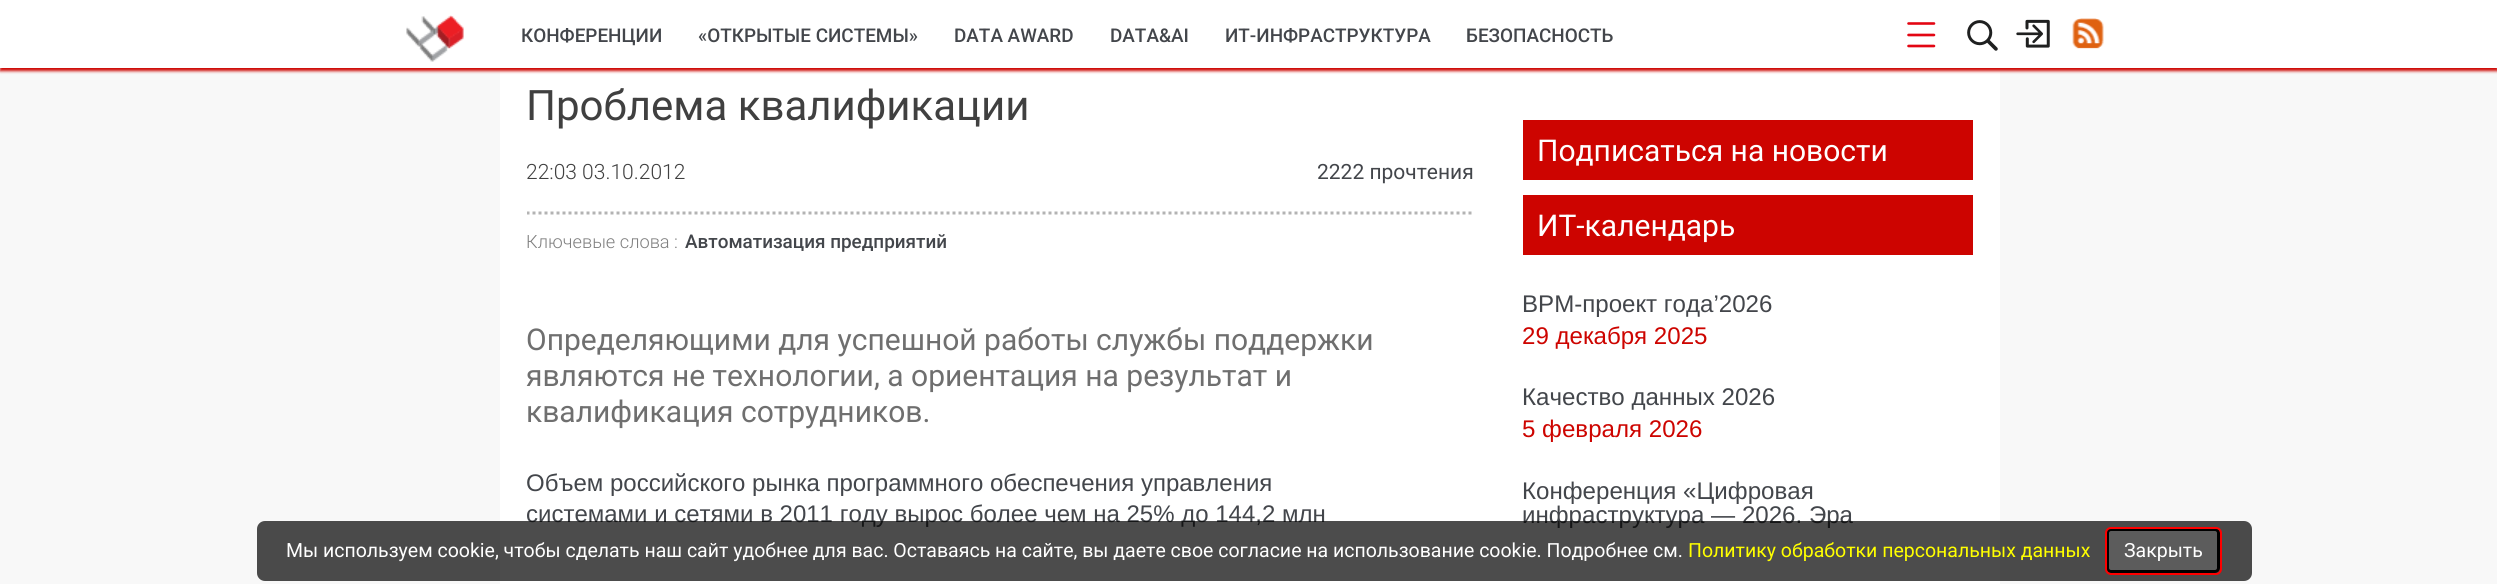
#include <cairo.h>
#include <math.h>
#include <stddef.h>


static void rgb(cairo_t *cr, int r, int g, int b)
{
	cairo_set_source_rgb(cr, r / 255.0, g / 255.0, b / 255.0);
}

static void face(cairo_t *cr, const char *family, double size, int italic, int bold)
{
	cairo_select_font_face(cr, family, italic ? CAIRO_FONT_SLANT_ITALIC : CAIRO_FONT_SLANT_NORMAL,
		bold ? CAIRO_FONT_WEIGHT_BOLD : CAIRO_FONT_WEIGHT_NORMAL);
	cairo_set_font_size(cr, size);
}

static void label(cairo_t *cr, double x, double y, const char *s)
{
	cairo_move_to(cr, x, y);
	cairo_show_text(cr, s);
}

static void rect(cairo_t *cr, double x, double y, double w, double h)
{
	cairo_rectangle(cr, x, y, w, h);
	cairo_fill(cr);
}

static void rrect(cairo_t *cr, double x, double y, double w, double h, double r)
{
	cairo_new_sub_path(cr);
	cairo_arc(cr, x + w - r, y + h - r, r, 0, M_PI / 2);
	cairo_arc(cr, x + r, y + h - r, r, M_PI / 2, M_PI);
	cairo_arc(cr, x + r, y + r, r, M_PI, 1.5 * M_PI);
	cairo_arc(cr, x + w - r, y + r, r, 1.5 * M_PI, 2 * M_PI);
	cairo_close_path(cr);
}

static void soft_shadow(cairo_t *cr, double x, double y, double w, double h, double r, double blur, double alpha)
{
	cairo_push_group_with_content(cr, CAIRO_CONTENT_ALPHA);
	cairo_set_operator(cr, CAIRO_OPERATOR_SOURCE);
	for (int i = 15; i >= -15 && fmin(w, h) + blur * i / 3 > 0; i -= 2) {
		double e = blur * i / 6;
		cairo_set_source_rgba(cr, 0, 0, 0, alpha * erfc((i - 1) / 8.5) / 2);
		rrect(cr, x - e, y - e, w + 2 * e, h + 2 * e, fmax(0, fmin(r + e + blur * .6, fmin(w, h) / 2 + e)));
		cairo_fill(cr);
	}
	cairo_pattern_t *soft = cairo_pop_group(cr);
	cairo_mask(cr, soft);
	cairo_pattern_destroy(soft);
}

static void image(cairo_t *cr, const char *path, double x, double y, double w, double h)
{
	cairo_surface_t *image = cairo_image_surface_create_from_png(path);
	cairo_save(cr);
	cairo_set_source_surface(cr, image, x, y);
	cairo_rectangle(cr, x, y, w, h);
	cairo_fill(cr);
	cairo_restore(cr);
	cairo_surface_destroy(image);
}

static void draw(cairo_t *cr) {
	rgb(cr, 248, 248, 248);
	cairo_paint(cr);
	rgb(cr, 255, 255, 255);
	rect(cr, 500, 68, 1500, 516);
	rgb(cr, 205, 4, 0);
	soft_shadow(cr, 0, 3, 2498, 68, 0, 1.5, 1);
	rgb(cr, 255, 255, 255);
	rect(cr, 0, 0, 2497, 68);
	image(cr, "image0.png", 406, 15, 58, 47);
	face(cr, "Roboto Medium", 18.9, 0, 0);
	rgb(cr, 67, 70, 75);
	label(cr, 521, 42, "КОНФЕРЕНЦИИ");
	label(cr, 698, 42, "«ОТКРЫТЫЕ СИСТЕМЫ»");
	label(cr, 954, 42, "DATA AWARD");
	label(cr, 1110, 42, "DATA&AI");
	label(cr, 1225, 42, "ИТ-ИНФРАСТРУКТУРА");
	label(cr, 1466, 42, "БЕЗОПАСНОСТЬ");
	cairo_new_path(cr);
	cairo_move_to(cr, 1908.5, 23.5);
	cairo_line_to(cr, 1934, 23.5);
	cairo_move_to(cr, 1908.5, 35);
	cairo_line_to(cr, 1934, 35);
	cairo_move_to(cr, 1908.5, 46);
	cairo_line_to(cr, 1934, 46);
	rgb(cr, 227, 6, 19);
	cairo_set_line_width(cr, 2.6);
	cairo_set_line_cap(cr, CAIRO_LINE_CAP_ROUND);
	cairo_stroke(cr);
	image(cr, "image1.png", 1967, 20, 31, 31);
	image(cr, "image2.png", 2016, 19, 34, 29);
	image(cr, "image3.png", 2072, 18, 32, 31);
	face(cr, "Roboto", 42, 0, 0);
	rgb(cr, 64, 64, 64);
	label(cr, 526, 120, "Проблема квалификации");
	face(cr, "Roboto Light", 21, 0, 0);
	label(cr, 526, 179, "22:03 03.10.2012");
	face(cr, "Roboto", 21, 0, 0);
	rgb(cr, 67, 70, 75);
	label(cr, 1317, 179, "2222 прочтения");
	cairo_save(cr);
	cairo_rectangle(cr, 527, 68, 948, 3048);
	cairo_clip(cr);
	cairo_new_path(cr);
	cairo_move_to(cr, 526.5, 213);
	cairo_line_to(cr, 1474.5, 213);
	rgb(cr, 179, 179, 179);
	cairo_set_line_width(cr, 3);
	cairo_set_line_cap(cr, CAIRO_LINE_CAP_BUTT);
	cairo_set_dash(cr, (double[]){3, 3}, 2, 0);
	cairo_stroke(cr);
	cairo_restore(cr);
	face(cr, "Roboto Light", 18.25, 0, 0);
	rgb(cr, 128, 128, 128);
	label(cr, 526, 248, "Ключевые слова :");
	face(cr, "Roboto Medium", 18.9, 0, 0);
	rgb(cr, 67, 70, 75);
	label(cr, 685, 248, "Автоматизация предприятий");
	face(cr, "Roboto", 30, 0, 0);
	rgb(cr, 111, 111, 111);
	label(cr, 526, 350, "Определяющими для успешной работы службы поддержки");
	label(cr, 526, 386, "являются не технологии, а ориентация на результат и");
	label(cr, 526, 422, "квалификация сотрудников.");
	face(cr, "Liberation Sans", 24, 0, 0);
	rgb(cr, 67, 70, 75);
	label(cr, 526, 491, "Объем российского рынка программного обеспечения управления");
	cairo_save(cr);
	cairo_rectangle(cr, 527, 68, 948, 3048);
	cairo_clip(cr);
	label(cr, 526, 522, "системами и сетями в 2011 году вырос более чем на 25% до 144,2 млн");
	cairo_restore(cr);
	rgb(cr, 205, 4, 0);
	rect(cr, 1523, 120, 450, 60);
	face(cr, "Roboto", 30, 0, 0);
	rgb(cr, 255, 255, 255);
	label(cr, 1537, 161, "Подписаться на новости");
	rgb(cr, 205, 4, 0);
	rect(cr, 1523, 195, 450, 60);
	rgb(cr, 255, 255, 255);
	label(cr, 1537, 236, "ИТ-календарь");
	face(cr, "Liberation Sans", 24.1, 0, 0);
	rgb(cr, 67, 70, 75);
	label(cr, 1522, 312, "BPM-проект года’2026");
	rgb(cr, 205, 4, 0);
	label(cr, 1522, 344, "29 декабря 2025");
	rgb(cr, 67, 70, 75);
	label(cr, 1522, 405, "Качество данных 2026");
	rgb(cr, 205, 4, 0);
	label(cr, 1522, 437, "5 февраля 2026");
	rgb(cr, 67, 70, 75);
	label(cr, 1522, 499, "Конференция «Цифровая");
	label(cr, 1522, 523, "инфраструктура ― 2026. Эра");
	cairo_set_source_rgba(cr, 0, 0, 0, 0.7);
	rrect(cr, 257, 521, 1995, 60, 8);
	cairo_fill(cr);
	face(cr, "Roboto", 19.5, 0, 0);
	rgb(cr, 255, 255, 255);
	label(cr, 286, 557, "Мы используем cookie, чтобы сделать наш сайт удобнее для вас. Оставаясь на сайте, вы даете свое согласие на использование cookie. Подробнее см.");
	rgb(cr, 255, 255, 0);
	label(cr, 1688, 557, "Политику обработки персональных данных");
	rgb(cr, 92, 92, 92);
	rrect(cr, 2107.5, 529.5, 111, 42, 3.5);
	cairo_fill_preserve(cr);
	rgb(cr, 0, 0, 0);
	cairo_set_line_width(cr, 3);
	cairo_set_line_cap(cr, CAIRO_LINE_CAP_BUTT);
	cairo_stroke(cr);
	rrect(cr, 2106, 528, 115, 46, 5);
	rgb(cr, 255, 0, 0);
	cairo_set_line_width(cr, 2);
	cairo_stroke(cr);
	rgb(cr, 255, 255, 255);
	label(cr, 2124, 557, "Закрыть");
}

int main(void) {
	cairo_surface_t *surface = cairo_image_surface_create(CAIRO_FORMAT_RGB24, 2497, 584);
	cairo_t *cr = cairo_create(surface);
	cairo_font_options_t *options = cairo_font_options_create();
	cairo_font_options_set_hint_metrics(options, CAIRO_HINT_METRICS_OFF);
	cairo_font_options_set_hint_style(options, CAIRO_HINT_STYLE_NONE);
	cairo_set_font_options(cr, options);
	cairo_set_miter_limit(cr, 4);
	draw(cr);
	cairo_surface_write_to_png(surface, "render.png");
	cairo_font_options_destroy(options);
	cairo_destroy(cr);
	cairo_surface_destroy(surface);
	return 0;
}
